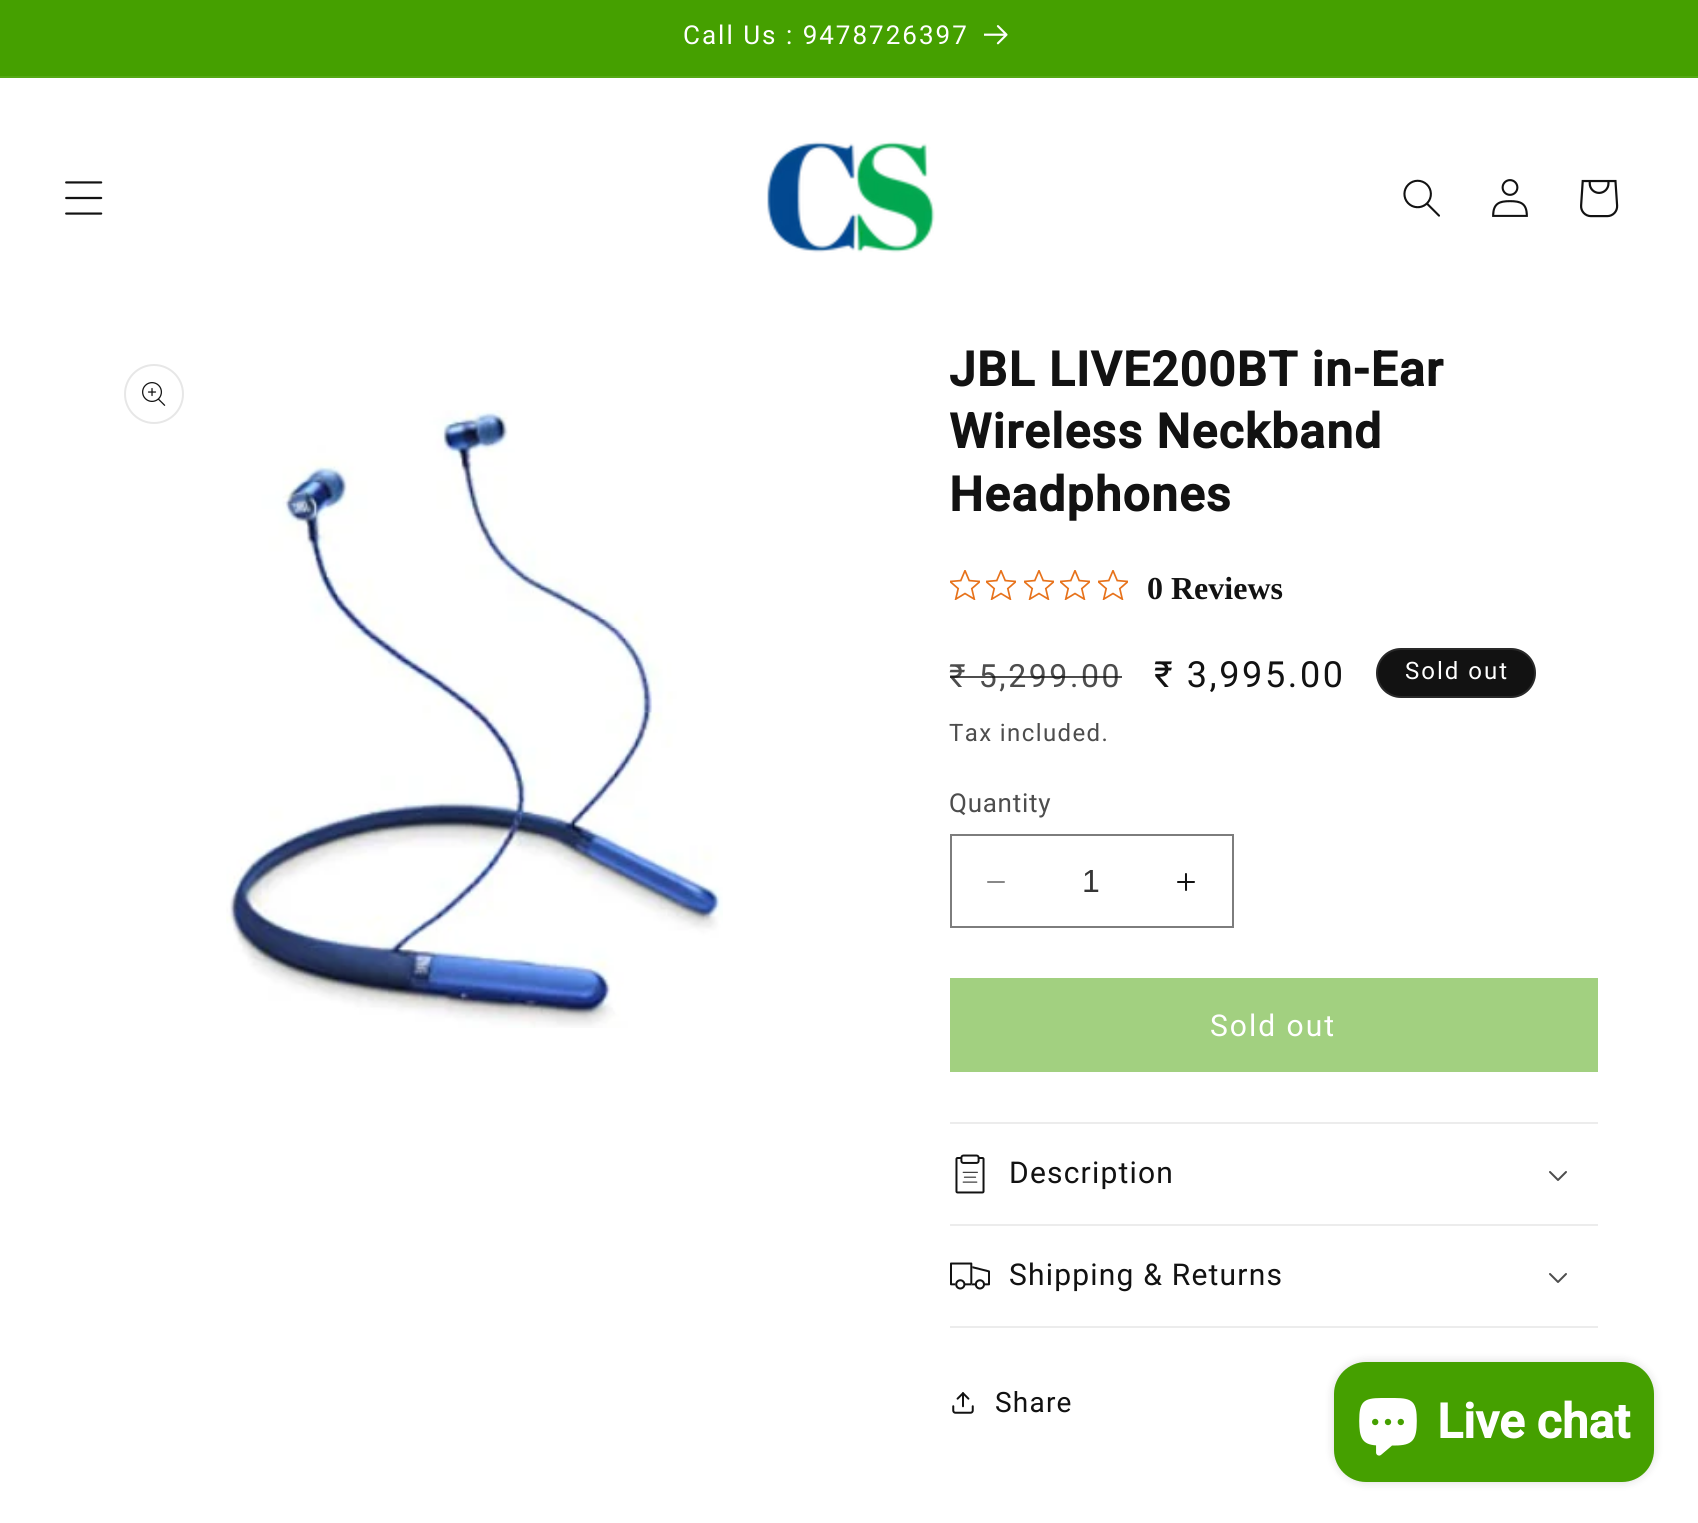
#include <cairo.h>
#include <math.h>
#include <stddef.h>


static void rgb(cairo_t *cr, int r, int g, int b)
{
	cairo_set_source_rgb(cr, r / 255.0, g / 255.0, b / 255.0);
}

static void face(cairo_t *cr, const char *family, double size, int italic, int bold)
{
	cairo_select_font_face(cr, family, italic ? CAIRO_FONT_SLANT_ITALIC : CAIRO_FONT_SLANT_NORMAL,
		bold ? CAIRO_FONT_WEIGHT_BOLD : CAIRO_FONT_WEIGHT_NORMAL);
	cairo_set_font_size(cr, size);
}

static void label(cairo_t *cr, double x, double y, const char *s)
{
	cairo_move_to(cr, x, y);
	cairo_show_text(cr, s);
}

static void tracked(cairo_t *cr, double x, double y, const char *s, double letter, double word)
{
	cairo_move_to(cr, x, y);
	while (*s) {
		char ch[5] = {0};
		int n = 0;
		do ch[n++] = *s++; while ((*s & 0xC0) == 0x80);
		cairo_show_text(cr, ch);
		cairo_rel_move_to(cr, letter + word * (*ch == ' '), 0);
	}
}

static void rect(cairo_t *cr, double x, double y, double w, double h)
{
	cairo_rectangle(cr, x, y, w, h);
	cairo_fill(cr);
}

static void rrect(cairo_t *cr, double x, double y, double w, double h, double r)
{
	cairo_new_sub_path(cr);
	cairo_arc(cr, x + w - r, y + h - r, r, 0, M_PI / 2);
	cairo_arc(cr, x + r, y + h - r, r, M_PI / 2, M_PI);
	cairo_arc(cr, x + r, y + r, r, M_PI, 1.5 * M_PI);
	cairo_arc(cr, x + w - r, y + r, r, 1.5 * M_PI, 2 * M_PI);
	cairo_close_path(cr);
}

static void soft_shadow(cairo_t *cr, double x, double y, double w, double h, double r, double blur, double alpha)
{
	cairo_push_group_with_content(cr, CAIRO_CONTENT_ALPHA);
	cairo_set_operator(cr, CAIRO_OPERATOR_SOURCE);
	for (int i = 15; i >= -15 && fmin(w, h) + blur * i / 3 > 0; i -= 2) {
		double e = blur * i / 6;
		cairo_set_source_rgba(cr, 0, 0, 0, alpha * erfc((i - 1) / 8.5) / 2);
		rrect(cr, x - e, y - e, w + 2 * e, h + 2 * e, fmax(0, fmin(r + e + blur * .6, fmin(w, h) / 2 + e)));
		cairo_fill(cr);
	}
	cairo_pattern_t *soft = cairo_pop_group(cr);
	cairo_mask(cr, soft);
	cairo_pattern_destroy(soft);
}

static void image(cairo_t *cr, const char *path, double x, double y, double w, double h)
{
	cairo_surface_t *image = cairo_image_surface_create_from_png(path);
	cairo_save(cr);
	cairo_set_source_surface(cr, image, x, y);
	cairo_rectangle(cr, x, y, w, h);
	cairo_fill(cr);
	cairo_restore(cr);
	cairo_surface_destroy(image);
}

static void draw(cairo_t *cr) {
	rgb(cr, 255, 255, 255);
	cairo_paint(cr);
	rgb(cr, 69, 160, 0);
	rect(cr, 0, 0, 1698, 76);
	rgb(cr, 84, 168, 20);
	rect(cr, 0, 76, 1698, 2);
	face(cr, "Roboto", 26, 0, 0);
	rgb(cr, 255, 255, 255);
	tracked(cr, 683, 44, "Call Us : 9478726397", 2, 0);
	image(cr, "image0.png", 984, 25, 24, 20);
	image(cr, "image1.png", 65, 181, 38, 34);
	image(cr, "image2.png", 767, 141, 168, 112);
	image(cr, "image3.png", 1403, 179, 37, 38);
	image(cr, "image4.png", 1492, 179, 36, 38);
	image(cr, "image5.png", 1580, 179, 39, 39);
	cairo_arc(cr, 154, 394, 29, 0, 2 * M_PI);
	rgb(cr, 231, 231, 231);
	cairo_stroke(cr);
	image(cr, "image6.png", 142, 382, 24, 24);
	image(cr, "image7.png", 226, 410, 497, 618);
	face(cr, "Roboto", 48, 0, 1);
	rgb(cr, 18, 18, 18);
	tracked(cr, 949, 386, "JBL LIVE200BT in-Ear", 1.2, 0);
	tracked(cr, 949, 448, "Wireless Neckband", 1.2, 0);
	tracked(cr, 949, 511, "Headphones", 1.2, 0);
	image(cr, "image8.png", 950, 570, 30, 30);
	image(cr, "image8.png", 986, 570, 30, 30);
	image(cr, "image8.png", 1024, 570, 30, 30);
	image(cr, "image8.png", 1060, 570, 30, 30);
	image(cr, "image8.png", 1098, 570, 30, 30);
	face(cr, "Liberation Serif", 32, 0, 1);
	label(cr, 1147, 599, "0 Reviews");
	face(cr, "Roboto", 32, 0, 0);
	rgb(cr, 77, 77, 77);
	tracked(cr, 949, 687, "₹ 5,299.00", 2.6, 0);
	cairo_set_source_rgba(cr, 0.071, 0.071, 0.071, 0.75);
	rect(cr, 950, 676, 172, 2);
	face(cr, "Roboto", 36, 0, 0);
	rgb(cr, 18, 18, 18);
	tracked(cr, 1154, 687, "₹ 3,995.00", 2.6, 0);
	rrect(cr, 1376, 648, 160, 50, 25);
	cairo_fill(cr);
	rrect(cr, 1377, 649, 158, 48, 24);
	cairo_set_source_rgba(cr, 1, 1, 1, 0.1);
	cairo_stroke(cr);
	face(cr, "Roboto", 24, 0, 0);
	rgb(cr, 255, 255, 255);
	tracked(cr, 1405, 679, "Sold out", 2, 0);
	rgb(cr, 77, 77, 77);
	tracked(cr, 949, 741, "Tax included.", 1.4, 0);
	face(cr, "Roboto", 26, 0, 0);
	tracked(cr, 949, 812, "Quantity", 0.75, 0);
	image(cr, "image9.png", 987, 881, 18, 2);
	image(cr, "image10.png", 1177, 873, 18, 18);
	cairo_rectangle(cr, 951, 835, 282, 92);
	rgb(cr, 125, 125, 125);
	cairo_stroke(cr);
	face(cr, "Liberation Sans", 32, 0, 0);
	rgb(cr, 54, 54, 54);
	label(cr, 1082, 892, "1");
	rgb(cr, 162, 208, 128);
	rect(cr, 950, 978, 648, 94);
	face(cr, "Roboto", 30, 0, 0);
	rgb(cr, 255, 255, 255);
	tracked(cr, 1210, 1036, "Sold out", 2, 0);
	rgb(cr, 236, 236, 236);
	rect(cr, 950, 1122, 648, 2);
	rect(cr, 950, 1224, 648, 2);
	image(cr, "image11.png", 955, 1154, 30, 40);
	rgb(cr, 18, 18, 18);
	tracked(cr, 1009, 1183, "Description", 1.2, 0);
	image(cr, "image12.png", 1549, 1171, 18, 10);
	rgb(cr, 236, 236, 236);
	rect(cr, 950, 1326, 648, 2);
	image(cr, "image13.png", 950, 1262, 40, 28);
	rgb(cr, 18, 18, 18);
	tracked(cr, 1009, 1285, "Shipping & Returns", 1.2, 0);
	image(cr, "image12.png", 1549, 1273, 18, 10);
	image(cr, "image14.png", 952, 1392, 22, 22);
	face(cr, "Roboto", 28, 0, 0);
	tracked(cr, 995, 1412, "Share", 1.2, 0);
	rgb(cr, 0, 0, 0);
	soft_shadow(cr, 1334, 1362, 320, 120, 32, 5, 0.15);
	rgb(cr, 69, 160, 0);
	rrect(cr, 1334, 1362, 320, 120, 32);
	cairo_fill(cr);
	image(cr, "image15.png", 1359, 1398, 58, 58);
	face(cr, "Roboto", 48, 0, 1);
	rgb(cr, 255, 255, 255);
	label(cr, 1437, 1438, "Live chat");
}

int main(void) {
	cairo_surface_t *surface = cairo_image_surface_create(CAIRO_FORMAT_RGB24, 1698, 1523);
	cairo_t *cr = cairo_create(surface);
	cairo_font_options_t *options = cairo_font_options_create();
	cairo_font_options_set_hint_metrics(options, CAIRO_HINT_METRICS_OFF);
	cairo_font_options_set_hint_style(options, CAIRO_HINT_STYLE_NONE);
	cairo_set_font_options(cr, options);
	cairo_set_miter_limit(cr, 4);
	draw(cr);
	cairo_surface_write_to_png(surface, "render.png");
	cairo_font_options_destroy(options);
	cairo_destroy(cr);
	cairo_surface_destroy(surface);
	return 0;
}
